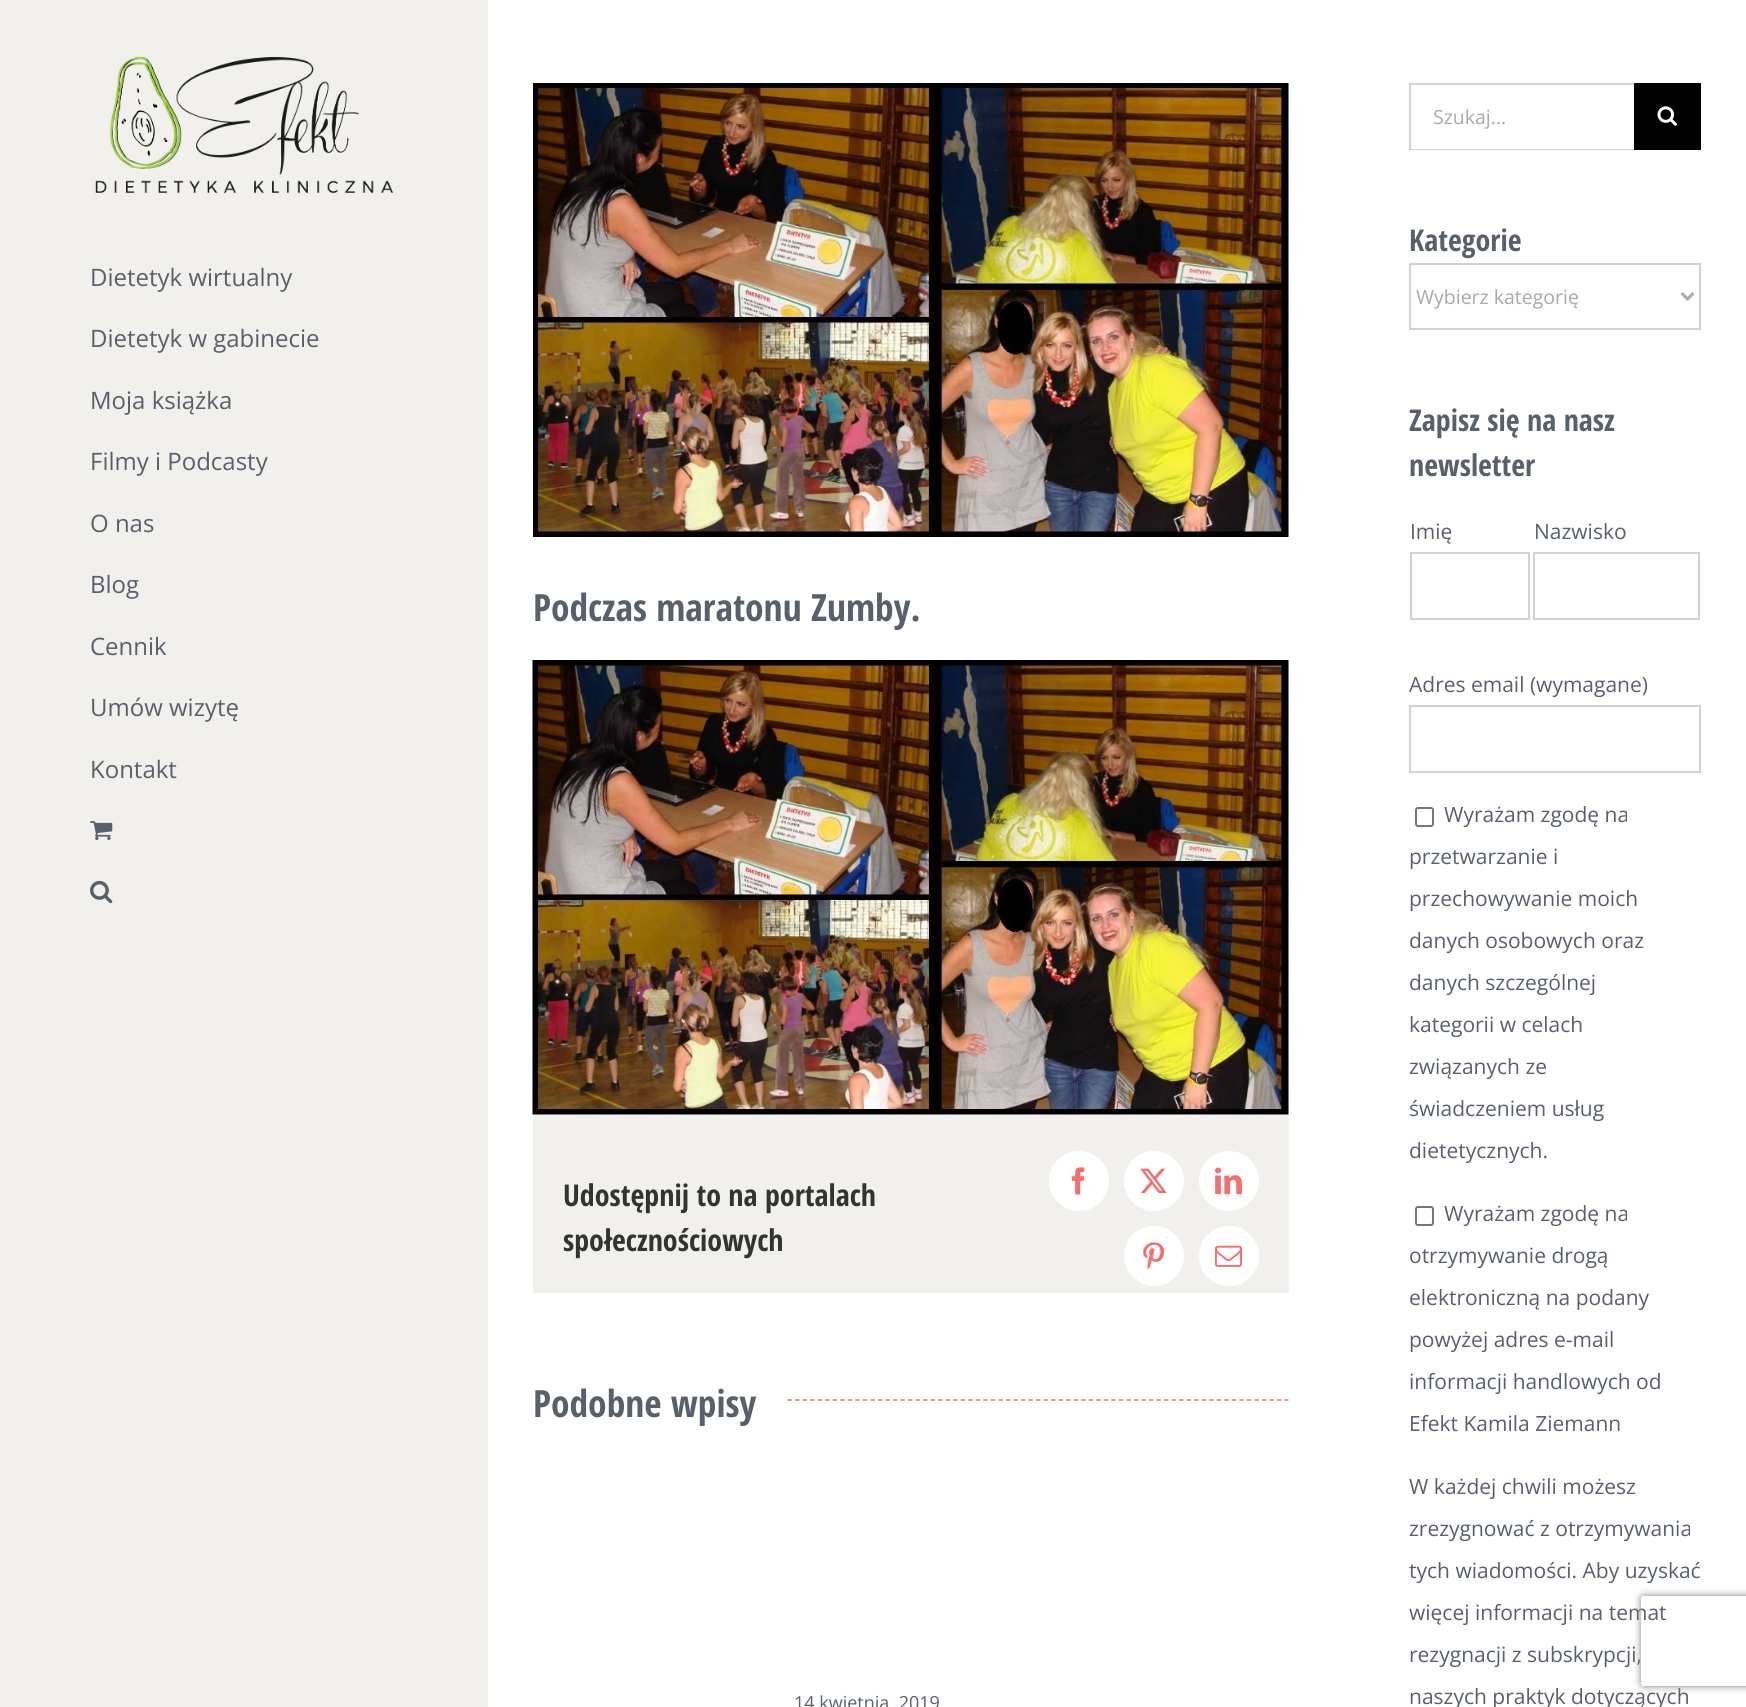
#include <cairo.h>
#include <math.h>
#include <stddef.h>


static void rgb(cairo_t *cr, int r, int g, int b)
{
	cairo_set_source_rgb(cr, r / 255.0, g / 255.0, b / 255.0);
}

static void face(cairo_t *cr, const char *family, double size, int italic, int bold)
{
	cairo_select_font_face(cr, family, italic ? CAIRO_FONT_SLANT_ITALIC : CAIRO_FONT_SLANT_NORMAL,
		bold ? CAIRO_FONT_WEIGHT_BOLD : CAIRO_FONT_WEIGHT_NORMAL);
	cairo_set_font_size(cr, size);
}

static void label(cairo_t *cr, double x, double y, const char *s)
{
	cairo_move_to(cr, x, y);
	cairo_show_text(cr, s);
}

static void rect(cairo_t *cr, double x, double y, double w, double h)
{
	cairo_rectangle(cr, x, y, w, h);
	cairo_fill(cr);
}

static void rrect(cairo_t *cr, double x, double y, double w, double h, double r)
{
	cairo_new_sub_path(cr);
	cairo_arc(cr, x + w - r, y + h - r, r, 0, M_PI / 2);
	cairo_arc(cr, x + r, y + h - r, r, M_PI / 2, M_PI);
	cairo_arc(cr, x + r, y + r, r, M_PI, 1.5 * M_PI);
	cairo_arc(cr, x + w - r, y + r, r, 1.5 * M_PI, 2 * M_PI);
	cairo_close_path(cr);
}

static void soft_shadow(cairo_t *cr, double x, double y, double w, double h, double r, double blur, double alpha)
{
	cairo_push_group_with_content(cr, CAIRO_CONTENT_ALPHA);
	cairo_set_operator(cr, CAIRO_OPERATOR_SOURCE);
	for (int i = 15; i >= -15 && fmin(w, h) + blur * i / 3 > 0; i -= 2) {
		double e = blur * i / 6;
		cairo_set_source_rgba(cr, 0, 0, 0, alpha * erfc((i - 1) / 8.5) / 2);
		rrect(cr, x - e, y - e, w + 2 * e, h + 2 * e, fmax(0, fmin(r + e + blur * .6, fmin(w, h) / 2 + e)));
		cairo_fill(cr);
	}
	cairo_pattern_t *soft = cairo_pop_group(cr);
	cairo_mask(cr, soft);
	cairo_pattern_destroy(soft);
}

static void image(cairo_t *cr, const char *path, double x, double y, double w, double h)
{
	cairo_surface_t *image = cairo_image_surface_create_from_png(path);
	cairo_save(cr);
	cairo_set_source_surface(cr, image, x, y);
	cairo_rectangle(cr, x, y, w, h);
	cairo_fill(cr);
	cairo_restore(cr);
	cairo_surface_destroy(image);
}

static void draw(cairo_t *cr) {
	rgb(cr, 255, 255, 255);
	cairo_paint(cr);
	rgb(cr, 241, 240, 236);
	rect(cr, 0, 0, 488, 1707);
	image(cr, "image0.png", 95, 56, 298, 138);
	face(cr, "Open Sans", 24, 0, 0);
	rgb(cr, 89, 95, 107);
	label(cr, 90, 286, "Dietetyk wirtualny");
	label(cr, 90, 347, "Dietetyk w gabinecie");
	label(cr, 90, 409, "Moja książka");
	label(cr, 90, 470, "Filmy i Podcasty");
	label(cr, 90, 532, "O nas");
	label(cr, 90, 593, "Blog");
	label(cr, 90, 655, "Cennik");
	label(cr, 90, 716, "Umów wizytę");
	label(cr, 90, 778, "Kontakt");
	image(cr, "image1.png", 90, 821, 23, 19);
	image(cr, "image2.png", 90, 880, 23, 24);
	image(cr, "image3.png", 533, 83, 756, 454);
	face(cr, "Open Sans Condensed", 37.5, 0, 1);
	label(cr, 533, 621, "Podczas maratonu Zumby.");
	image(cr, "image4.png", 532, 660, 757, 455);
	rgb(cr, 241, 240, 236);
	rect(cr, 533, 1115, 756, 178);
	face(cr, "Open Sans Condensed", 30, 0, 1);
	rgb(cr, 51, 51, 51);
	label(cr, 563, 1206, "Udostępnij to na portalach");
	label(cr, 563, 1251, "społecznościowych");
	rgb(cr, 255, 255, 255);
	cairo_new_path(cr);
	cairo_arc(cr, 1079, 1181, 29, 0, 2 * M_PI);
	cairo_fill_preserve(cr);
	cairo_stroke(cr);
	image(cr, "image5.png", 1071, 1167, 14, 28);
	cairo_arc(cr, 1154, 1181, 29, 0, 2 * M_PI);
	cairo_fill_preserve(cr);
	cairo_stroke(cr);
	image(cr, "image6.png", 1140, 1168, 27, 26);
	cairo_arc(cr, 1229, 1181, 29, 0, 2 * M_PI);
	cairo_fill_preserve(cr);
	cairo_stroke(cr);
	image(cr, "image7.png", 1215, 1167, 27, 28);
	cairo_arc(cr, 1154, 1256, 29, 0, 2 * M_PI);
	cairo_fill_preserve(cr);
	cairo_stroke(cr);
	image(cr, "image8.png", 1143, 1242, 22, 28);
	cairo_arc(cr, 1229, 1256, 29, 0, 2 * M_PI);
	cairo_fill_preserve(cr);
	cairo_stroke(cr);
	image(cr, "image9.png", 1215, 1245, 27, 22);
	face(cr, "Open Sans Condensed", 37.5, 0, 1);
	rgb(cr, 89, 95, 107);
	label(cr, 533, 1417, "Podobne wpisy");
	cairo_new_path(cr);
	cairo_move_to(cr, 787.5, 1400);
	cairo_line_to(cr, 1288.5, 1400);
	rgb(cr, 244, 111, 114);
	cairo_set_line_width(cr, 1.5);
	cairo_set_dash(cr, (double[]){4.5, 3.03}, 2, 0);
	cairo_stroke(cr);
	face(cr, "Open Sans", 18, 0, 0);
	rgb(cr, 89, 95, 107);
	label(cr, 794, 1709, "14 kwietnia, 2019");
	rgb(cr, 210, 210, 210);
	rect(cr, 1409, 83, 225, 2);
	rect(cr, 1409, 149, 225, 1);
	rect(cr, 1409, 83, 2, 67);
	face(cr, "Open Sans", 19.5, 0, 0);
	rgb(cr, 170, 169, 169);
	label(cr, 1433, 124, "Szukaj...");
	rgb(cr, 0, 0, 0);
	rect(cr, 1634, 83, 67, 67);
	image(cr, "image10.png", 1657, 106, 20, 20);
	face(cr, "Open Sans Condensed", 30, 0, 1);
	rgb(cr, 89, 95, 107);
	label(cr, 1409, 251, "Kategorie");
	cairo_rectangle(cr, 1410, 264, 290, 65);
	rgb(cr, 210, 210, 210);
	cairo_set_line_width(cr, 2);
	cairo_set_dash(cr, NULL, 0, 0);
	cairo_stroke(cr);
	cairo_new_path(cr);
	cairo_move_to(cr, 1681.5, 293);
	cairo_line_to(cr, 1687.5, 299);
	cairo_line_to(cr, 1693.5, 293);
	rgb(cr, 170, 169, 169);
	cairo_set_line_width(cr, 3);
	cairo_stroke(cr);
	face(cr, "Open Sans", 19.5, 0, 0);
	label(cr, 1416, 304, "Wybierz kategorię");
	face(cr, "Open Sans Condensed", 30, 0, 1);
	rgb(cr, 89, 95, 107);
	label(cr, 1409, 431, "Zapisz się na nasz");
	label(cr, 1409, 476, "newsletter");
	face(cr, "Open Sans", 21, 0, 0);
	label(cr, 1410, 539, "Imię");
	cairo_rectangle(cr, 1411, 553, 118, 66);
	rgb(cr, 210, 210, 210);
	cairo_set_line_width(cr, 2);
	cairo_stroke(cr);
	rgb(cr, 89, 95, 107);
	label(cr, 1534, 539, "Nazwisko");
	cairo_rectangle(cr, 1534, 553, 165, 66);
	rgb(cr, 210, 210, 210);
	cairo_stroke(cr);
	rgb(cr, 89, 95, 107);
	label(cr, 1409, 692, "Adres email (wymagane)");
	cairo_rectangle(cr, 1410, 706, 290, 66);
	rgb(cr, 210, 210, 210);
	cairo_stroke(cr);
	rrect(cr, 1416, 808, 17, 18, 2);
	rgb(cr, 118, 118, 118);
	cairo_stroke(cr);
	rgb(cr, 89, 95, 107);
	label(cr, 1444, 822, "Wyrażam zgodę na");
	label(cr, 1409, 864, "przetwarzanie i");
	label(cr, 1409, 906, "przechowywanie moich");
	label(cr, 1409, 948, "danych osobowych oraz");
	label(cr, 1409, 990, "danych szczególnej");
	label(cr, 1409, 1032, "kategorii w celach");
	label(cr, 1409, 1074, "związanych ze");
	label(cr, 1409, 1116, "świadczeniem usług");
	label(cr, 1409, 1158, "dietetycznych.");
	rrect(cr, 1416, 1207, 17, 18, 2);
	rgb(cr, 118, 118, 118);
	cairo_stroke(cr);
	rgb(cr, 89, 95, 107);
	label(cr, 1444, 1221, "Wyrażam zgodę na");
	label(cr, 1409, 1263, "otrzymywanie drogą");
	label(cr, 1409, 1305, "elektroniczną na podany");
	label(cr, 1409, 1347, "powyżej adres e-mail");
	label(cr, 1409, 1389, "informacji handlowych od");
	label(cr, 1409, 1431, "Efekt Kamila Ziemann");
	label(cr, 1409, 1494, "W każdej chwili możesz");
	label(cr, 1409, 1536, "zrezygnować z otrzymywania");
	label(cr, 1409, 1578, "tych wiadomości. Aby uzyskać");
	label(cr, 1409, 1620, "więcej informacji na temat");
	label(cr, 1409, 1662, "rezygnacji z subskrypcji,");
	label(cr, 1409, 1704, "naszych praktyk dotyczących");
	cairo_save(cr);
	cairo_set_fill_rule(cr, CAIRO_FILL_RULE_EVEN_ODD);
	cairo_new_path(cr);
	cairo_move_to(cr, 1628, 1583);
	cairo_line_to(cr, 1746, 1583);
	cairo_line_to(cr, 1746, 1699);
	cairo_line_to(cr, 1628, 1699);
	cairo_close_path(cr);
	cairo_move_to(cr, 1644, 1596);
	cairo_line_to(cr, 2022, 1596);
	cairo_curve_to(cr, 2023.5, 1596, 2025, 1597.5, 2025, 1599);
	cairo_line_to(cr, 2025, 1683);
	cairo_curve_to(cr, 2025, 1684.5, 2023.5, 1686, 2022, 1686);
	cairo_line_to(cr, 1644, 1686);
	cairo_curve_to(cr, 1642.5, 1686, 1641, 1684.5, 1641, 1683);
	cairo_line_to(cr, 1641, 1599);
	cairo_curve_to(cr, 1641, 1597.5, 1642.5, 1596, 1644, 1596);
	cairo_close_path(cr);
	cairo_clip(cr);
	rgb(cr, 128, 128, 128);
	soft_shadow(cr, 1641, 1596, 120, 90, 3, 4, 1);
	cairo_restore(cr);
}

int main(void) {
	cairo_surface_t *surface = cairo_image_surface_create(CAIRO_FORMAT_RGB24, 1746, 1707);
	cairo_t *cr = cairo_create(surface);
	cairo_font_options_t *options = cairo_font_options_create();
	cairo_font_options_set_hint_metrics(options, CAIRO_HINT_METRICS_OFF);
	cairo_font_options_set_hint_style(options, CAIRO_HINT_STYLE_NONE);
	cairo_set_font_options(cr, options);
	cairo_set_miter_limit(cr, 4);
	draw(cr);
	cairo_surface_write_to_png(surface, "render.png");
	cairo_font_options_destroy(options);
	cairo_destroy(cr);
	cairo_surface_destroy(surface);
	return 0;
}
